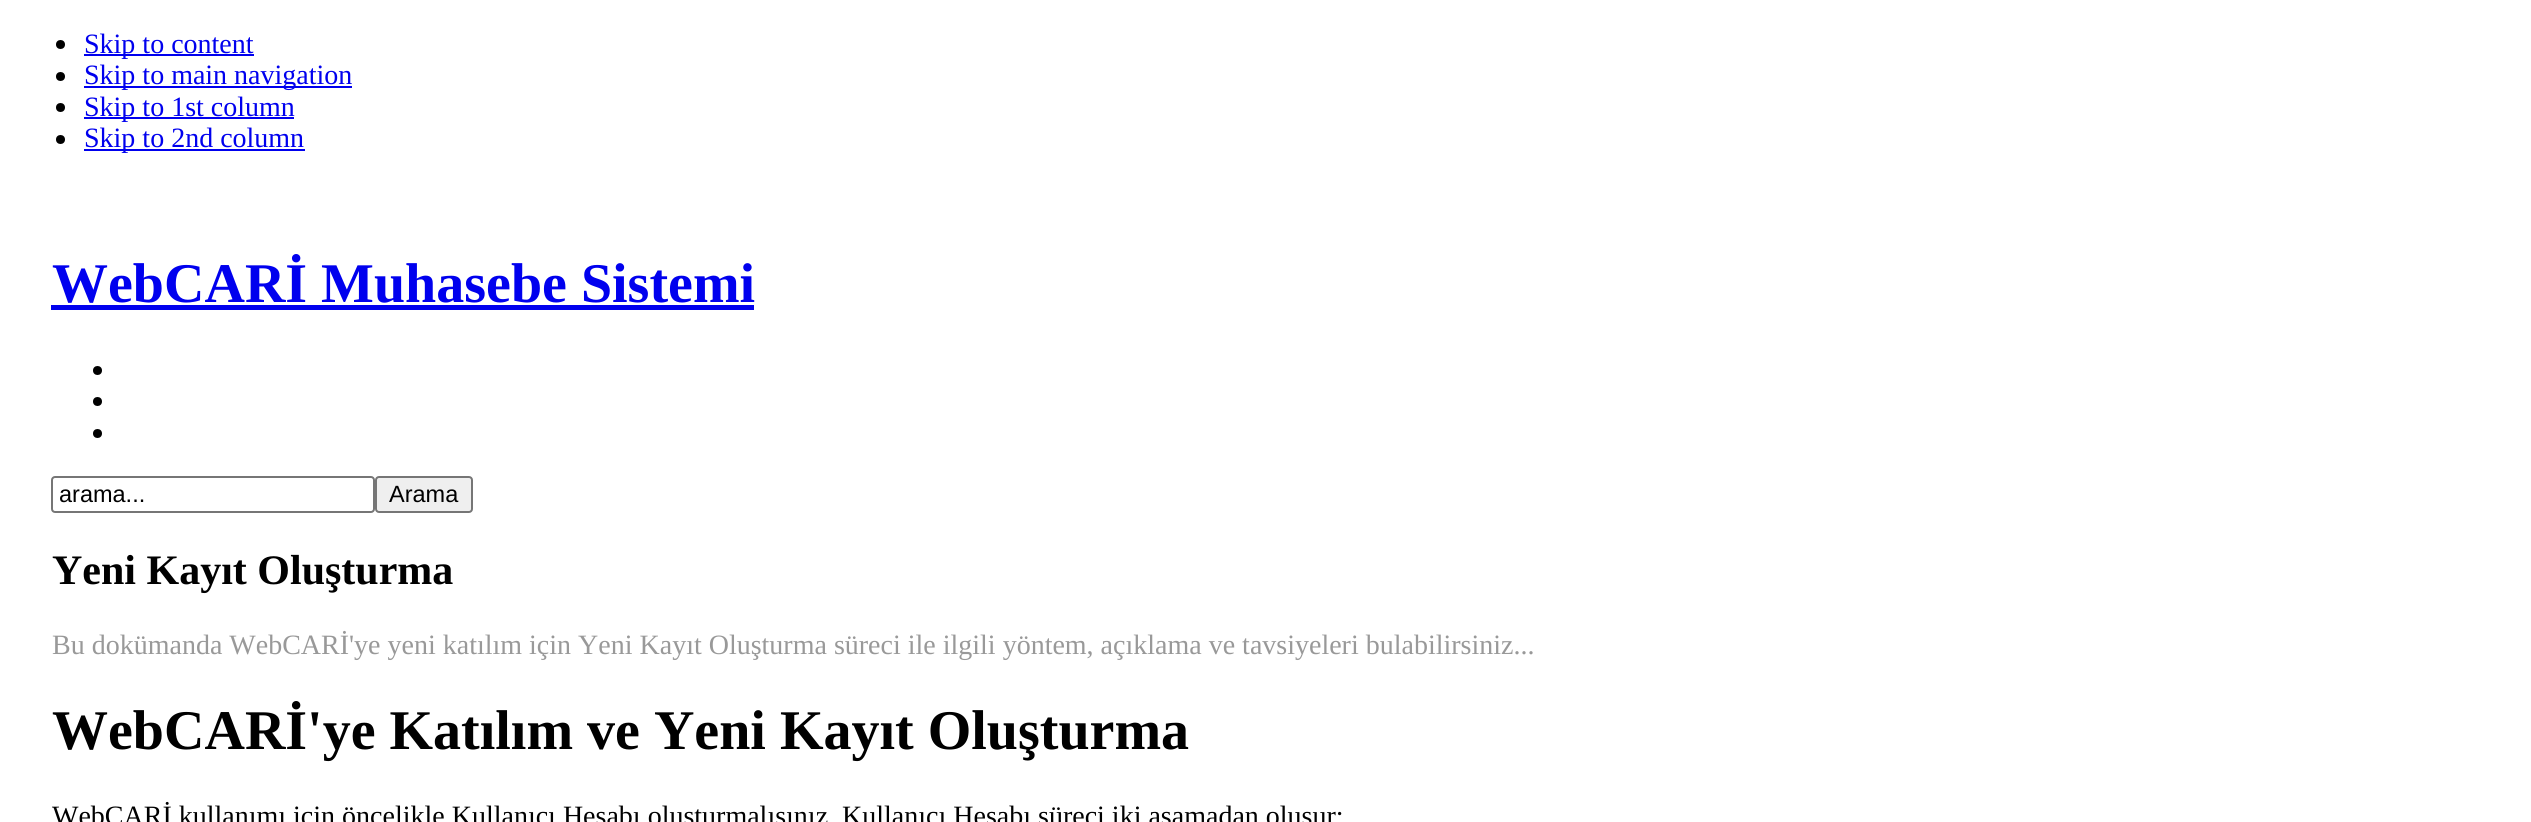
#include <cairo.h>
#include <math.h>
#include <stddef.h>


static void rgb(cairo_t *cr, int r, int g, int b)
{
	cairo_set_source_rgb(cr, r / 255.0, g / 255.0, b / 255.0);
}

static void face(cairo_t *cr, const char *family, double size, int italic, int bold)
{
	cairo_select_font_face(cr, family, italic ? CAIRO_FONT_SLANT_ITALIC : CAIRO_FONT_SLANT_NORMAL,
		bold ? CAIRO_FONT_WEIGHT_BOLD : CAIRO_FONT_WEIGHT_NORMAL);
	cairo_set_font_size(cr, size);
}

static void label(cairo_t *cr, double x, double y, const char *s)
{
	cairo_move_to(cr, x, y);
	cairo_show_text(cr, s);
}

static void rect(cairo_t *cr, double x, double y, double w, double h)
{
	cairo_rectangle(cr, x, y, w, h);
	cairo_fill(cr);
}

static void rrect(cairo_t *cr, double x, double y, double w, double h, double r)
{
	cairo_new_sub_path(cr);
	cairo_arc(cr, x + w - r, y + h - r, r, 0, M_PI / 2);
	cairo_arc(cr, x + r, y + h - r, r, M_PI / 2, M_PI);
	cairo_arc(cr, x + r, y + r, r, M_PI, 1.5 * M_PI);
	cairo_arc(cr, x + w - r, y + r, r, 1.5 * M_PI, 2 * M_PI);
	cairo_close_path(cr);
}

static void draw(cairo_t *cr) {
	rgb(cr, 255, 255, 255);
	cairo_paint(cr);
	rgb(cr, 0, 0, 0);
	cairo_arc(cr, 60.5, 44.5, 4.5, 0, 2 * M_PI);
	cairo_fill(cr);
	rgb(cr, 0, 0, 238);
	rect(cr, 84, 54, 170, 2);
	face(cr, "Liberation Serif", 28, 0, 0);
	label(cr, 84, 53, "Skip to content");
	rgb(cr, 0, 0, 0);
	cairo_new_path(cr);
	cairo_arc(cr, 60.5, 76.5, 4.5, 0, 2 * M_PI);
	cairo_fill(cr);
	rgb(cr, 0, 0, 238);
	rect(cr, 84, 86, 268, 2);
	label(cr, 84, 84, "Skip to main navigation");
	rgb(cr, 0, 0, 0);
	cairo_new_path(cr);
	cairo_arc(cr, 60.5, 107.5, 4.5, 0, 2 * M_PI);
	cairo_fill(cr);
	rgb(cr, 0, 0, 238);
	rect(cr, 84, 117, 210, 2);
	label(cr, 84, 116, "Skip to 1st column");
	rgb(cr, 0, 0, 0);
	cairo_new_path(cr);
	cairo_arc(cr, 60.5, 139.5, 4.5, 0, 2 * M_PI);
	cairo_fill(cr);
	rgb(cr, 0, 0, 238);
	rect(cr, 84, 149, 221, 2);
	label(cr, 84, 147, "Skip to 2nd column");
	face(cr, "Liberation Serif", 56, 0, 1);
	label(cr, 52, 302, "WebCARİ Muhasebe Sistemi");
	rect(cr, 51, 305, 703, 5);
	rgb(cr, 0, 0, 0);
	cairo_new_path(cr);
	cairo_arc(cr, 97.5, 370.5, 4.5, 0, 2 * M_PI);
	cairo_fill(cr);
	cairo_arc(cr, 97.5, 401.5, 4.5, 0, 2 * M_PI);
	cairo_fill(cr);
	cairo_arc(cr, 97.5, 433.5, 4.5, 0, 2 * M_PI);
	cairo_fill(cr);
	rrect(cr, 52, 477, 322, 35, 3);
	rgb(cr, 118, 118, 118);
	cairo_stroke(cr);
	face(cr, "Liberation Sans", 23.5, 0, 0);
	rgb(cr, 0, 0, 0);
	label(cr, 59, 502, "arama...");
	rgb(cr, 239, 239, 239);
	rrect(cr, 376, 477, 96, 35, 3);
	cairo_fill_preserve(cr);
	rgb(cr, 118, 118, 118);
	cairo_stroke(cr);
	rgb(cr, 0, 0, 0);
	label(cr, 389, 502, "Arama");
	face(cr, "Liberation Serif", 42, 0, 1);
	label(cr, 52, 584, "Yeni Kayıt Oluşturma");
	face(cr, "Liberation Serif", 28, 0, 0);
	rgb(cr, 153, 153, 153);
	label(cr, 52, 654, "Bu dokümanda WebCARİ'ye yeni katılım için Yeni Kayıt Oluşturma süreci ile ilgili yöntem, açıklama ve tavsiyeleri bulabilirsiniz...");
	face(cr, "Liberation Serif", 56, 0, 1);
	rgb(cr, 0, 0, 0);
	label(cr, 52, 749, "WebCARİ'ye Katılım ve Yeni Kayıt Oluşturma");
	face(cr, "Liberation Serif", 28, 0, 0);
	label(cr, 52, 825, "WebCARİ kullanımı için öncelikle Kullanıcı Hesabı oluşturmalısınız. Kullanıcı Hesabı süreci iki aşamadan oluşur:");
}

int main(void) {
	cairo_surface_t *surface = cairo_image_surface_create(CAIRO_FORMAT_RGB24, 2531, 822);
	cairo_t *cr = cairo_create(surface);
	cairo_font_options_t *options = cairo_font_options_create();
	cairo_font_options_set_hint_metrics(options, CAIRO_HINT_METRICS_OFF);
	cairo_font_options_set_hint_style(options, CAIRO_HINT_STYLE_NONE);
	cairo_set_font_options(cr, options);
	cairo_set_miter_limit(cr, 4);
	draw(cr);
	cairo_surface_write_to_png(surface, "render.png");
	cairo_font_options_destroy(options);
	cairo_destroy(cr);
	cairo_surface_destroy(surface);
	return 0;
}
